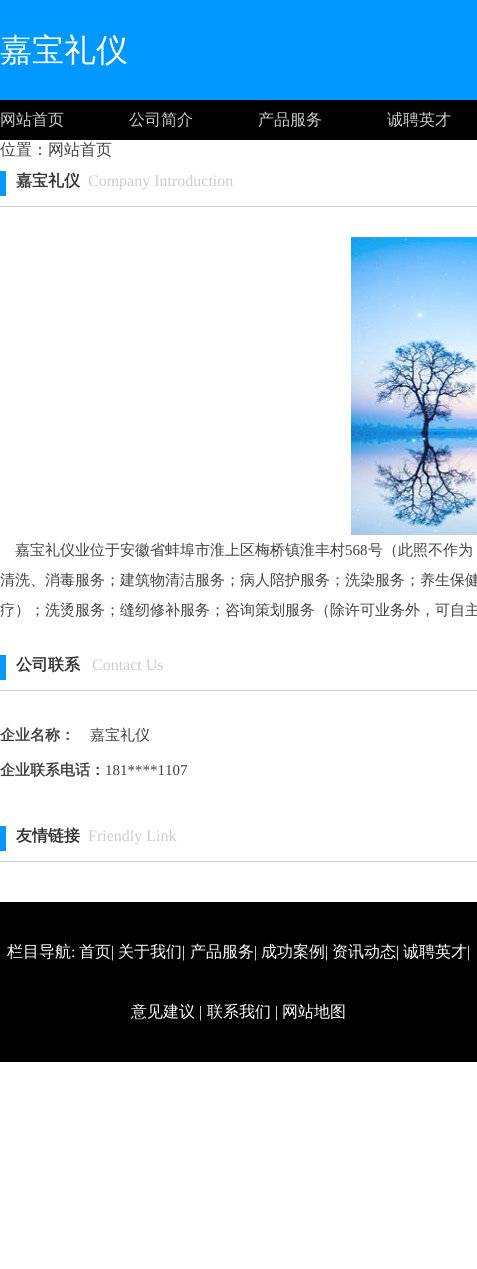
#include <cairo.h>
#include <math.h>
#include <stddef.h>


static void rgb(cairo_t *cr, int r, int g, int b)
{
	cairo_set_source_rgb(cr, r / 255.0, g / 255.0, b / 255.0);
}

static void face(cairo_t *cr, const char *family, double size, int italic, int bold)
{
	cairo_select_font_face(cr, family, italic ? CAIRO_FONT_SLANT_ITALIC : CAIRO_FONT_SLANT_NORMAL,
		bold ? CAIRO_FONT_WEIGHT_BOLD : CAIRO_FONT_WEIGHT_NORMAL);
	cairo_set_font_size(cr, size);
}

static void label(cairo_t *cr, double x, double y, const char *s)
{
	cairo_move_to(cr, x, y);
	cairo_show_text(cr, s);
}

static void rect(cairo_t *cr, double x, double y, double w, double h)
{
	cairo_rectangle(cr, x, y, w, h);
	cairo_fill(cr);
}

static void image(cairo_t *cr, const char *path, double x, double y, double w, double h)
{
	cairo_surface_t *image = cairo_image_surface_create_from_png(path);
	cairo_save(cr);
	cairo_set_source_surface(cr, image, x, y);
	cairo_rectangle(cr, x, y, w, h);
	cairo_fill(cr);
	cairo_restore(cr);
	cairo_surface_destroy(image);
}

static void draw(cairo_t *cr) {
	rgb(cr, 255, 255, 255);
	cairo_paint(cr);
	rgb(cr, 0, 152, 255);
	rect(cr, 0, 0, 477, 100);
	face(cr, "WenQuanYi Zen Hei Medium", 32, 0, 0);
	rgb(cr, 255, 255, 255);
	label(cr, 0, 61, "嘉宝礼仪");
	rgb(cr, 0, 0, 0);
	rect(cr, 0, 100, 477, 40);
	face(cr, "WenQuanYi Zen Hei Medium", 16, 0, 0);
	rgb(cr, 204, 204, 204);
	label(cr, 0, 125, "网站首页");
	label(cr, 129, 125, "公司简介");
	label(cr, 258, 125, "产品服务");
	label(cr, 387, 125, "诚聘英才");
	rgb(cr, 65, 65, 65);
	label(cr, 0, 155, "位置：网站首页");
	rgb(cr, 204, 204, 204);
	rect(cr, 0, 206, 477, 1);
	rgb(cr, 0, 152, 255);
	rect(cr, 0, 171, 6, 25);
	face(cr, "WenQuanYi Zen Hei", 16, 0, 1);
	rgb(cr, 51, 51, 51);
	label(cr, 16, 186, "嘉宝礼仪");
	face(cr, "Liberation Serif", 16, 0, 0);
	rgb(cr, 204, 204, 204);
	label(cr, 88, 186, "Company Introduction");
	image(cr, "image0.png", 351, 237, 126, 298);
	face(cr, "WenQuanYi Zen Hei Medium", 15, 0, 0);
	rgb(cr, 65, 65, 65);
	label(cr, 15, 555, "嘉宝礼仪业位于安徽省蚌埠市淮上区梅桥镇淮丰村");
	face(cr, "Liberation Serif", 15, 0, 0);
	label(cr, 345, 555, "568");
	face(cr, "WenQuanYi Zen Hei Medium", 15, 0, 0);
	label(cr, 368, 555, "号（此照不作为");
	label(cr, 0, 585, "清洗、消毒服务；建筑物清洁服务；病人陪护服务；洗染服务；养生保健");
	label(cr, 0, 615, "疗）；洗烫服务；缝纫修补服务；咨询策划服务（除许可业务外，可自主");
	rgb(cr, 204, 204, 204);
	rect(cr, 0, 690, 477, 1);
	rgb(cr, 0, 152, 255);
	rect(cr, 0, 655, 6, 25);
	face(cr, "WenQuanYi Zen Hei", 16, 0, 1);
	rgb(cr, 51, 51, 51);
	label(cr, 16, 670, "公司联系");
	face(cr, "Liberation Serif", 16, 0, 0);
	rgb(cr, 204, 204, 204);
	label(cr, 92, 670, "Contact Us");
	face(cr, "WenQuanYi Zen Hei", 15, 0, 1);
	rgb(cr, 65, 65, 65);
	label(cr, 0, 740, "企业名称：");
	face(cr, "WenQuanYi Zen Hei Medium", 15, 0, 0);
	label(cr, 90, 740, "嘉宝礼仪");
	face(cr, "WenQuanYi Zen Hei", 15, 0, 1);
	label(cr, 0, 775, "企业联系电话：");
	face(cr, "Liberation Serif", 15, 0, 0);
	label(cr, 105, 775, "181****1107");
	rgb(cr, 204, 204, 204);
	rect(cr, 0, 861, 477, 1);
	rgb(cr, 0, 152, 255);
	rect(cr, 0, 826, 6, 25);
	face(cr, "WenQuanYi Zen Hei", 16, 0, 1);
	rgb(cr, 51, 51, 51);
	label(cr, 16, 841, "友情链接");
	face(cr, "Liberation Serif", 16, 0, 0);
	rgb(cr, 204, 204, 204);
	label(cr, 88, 841, "Friendly Link");
	rgb(cr, 0, 0, 0);
	rect(cr, 0, 902, 477, 160);
	face(cr, "WenQuanYi Zen Hei Medium", 16, 0, 0);
	rgb(cr, 255, 255, 255);
	label(cr, 7, 957, "栏目导航");
	face(cr, "Liberation Serif", 16, 0, 0);
	label(cr, 71, 957, ":");
	face(cr, "WenQuanYi Zen Hei Medium", 16, 0, 0);
	label(cr, 79, 957, "首页");
	face(cr, "Liberation Serif", 16, 0, 0);
	label(cr, 111, 957, "|");
	face(cr, "WenQuanYi Zen Hei Medium", 16, 0, 0);
	label(cr, 118, 957, "关于我们");
	face(cr, "Liberation Serif", 16, 0, 0);
	label(cr, 182, 957, "|");
	face(cr, "WenQuanYi Zen Hei Medium", 16, 0, 0);
	label(cr, 190, 957, "产品服务");
	face(cr, "Liberation Serif", 16, 0, 0);
	label(cr, 254, 957, "|");
	face(cr, "WenQuanYi Zen Hei Medium", 16, 0, 0);
	label(cr, 261, 957, "成功案例");
	face(cr, "Liberation Serif", 16, 0, 0);
	label(cr, 325, 957, "|");
	face(cr, "WenQuanYi Zen Hei Medium", 16, 0, 0);
	label(cr, 332, 957, "资讯动态");
	face(cr, "Liberation Serif", 16, 0, 0);
	label(cr, 396, 957, "|");
	face(cr, "WenQuanYi Zen Hei Medium", 16, 0, 0);
	label(cr, 403, 957, "诚聘英才");
	face(cr, "Liberation Serif", 16, 0, 0);
	label(cr, 467, 957, "|");
	face(cr, "WenQuanYi Zen Hei Medium", 16, 0, 0);
	label(cr, 131, 1017, "意见建议");
	face(cr, "Liberation Serif", 16, 0, 0);
	label(cr, 199, 1017, "|");
	face(cr, "WenQuanYi Zen Hei Medium", 16, 0, 0);
	label(cr, 207, 1017, "联系我们");
	face(cr, "Liberation Serif", 16, 0, 0);
	label(cr, 275, 1017, "|");
	face(cr, "WenQuanYi Zen Hei Medium", 16, 0, 0);
	label(cr, 282, 1017, "网站地图");
}

int main(void) {
	cairo_surface_t *surface = cairo_image_surface_create(CAIRO_FORMAT_RGB24, 477, 1269);
	cairo_t *cr = cairo_create(surface);
	cairo_font_options_t *options = cairo_font_options_create();
	cairo_font_options_set_hint_metrics(options, CAIRO_HINT_METRICS_OFF);
	cairo_font_options_set_hint_style(options, CAIRO_HINT_STYLE_NONE);
	cairo_set_font_options(cr, options);
	cairo_set_miter_limit(cr, 4);
	draw(cr);
	cairo_surface_write_to_png(surface, "render.png");
	cairo_font_options_destroy(options);
	cairo_destroy(cr);
	cairo_surface_destroy(surface);
	return 0;
}
